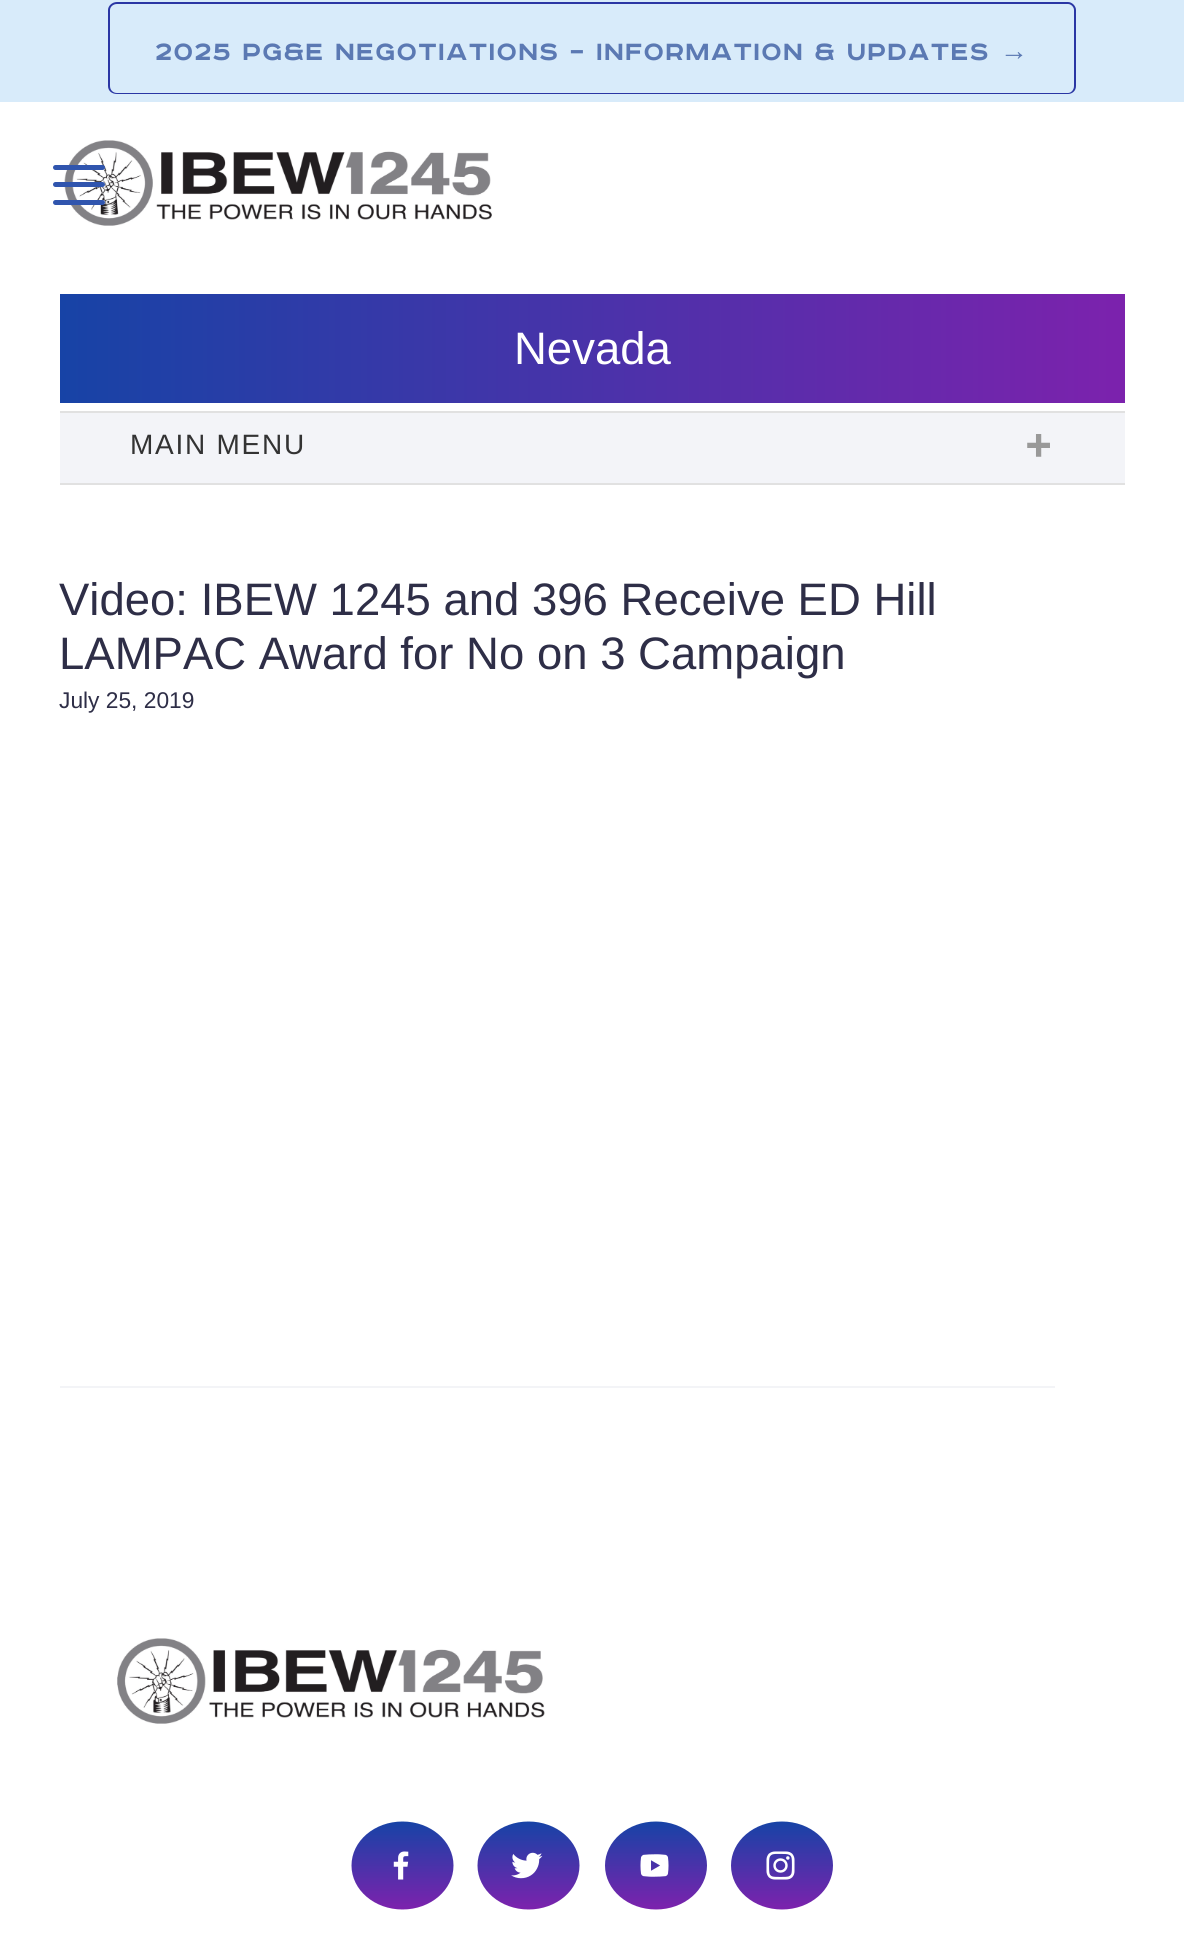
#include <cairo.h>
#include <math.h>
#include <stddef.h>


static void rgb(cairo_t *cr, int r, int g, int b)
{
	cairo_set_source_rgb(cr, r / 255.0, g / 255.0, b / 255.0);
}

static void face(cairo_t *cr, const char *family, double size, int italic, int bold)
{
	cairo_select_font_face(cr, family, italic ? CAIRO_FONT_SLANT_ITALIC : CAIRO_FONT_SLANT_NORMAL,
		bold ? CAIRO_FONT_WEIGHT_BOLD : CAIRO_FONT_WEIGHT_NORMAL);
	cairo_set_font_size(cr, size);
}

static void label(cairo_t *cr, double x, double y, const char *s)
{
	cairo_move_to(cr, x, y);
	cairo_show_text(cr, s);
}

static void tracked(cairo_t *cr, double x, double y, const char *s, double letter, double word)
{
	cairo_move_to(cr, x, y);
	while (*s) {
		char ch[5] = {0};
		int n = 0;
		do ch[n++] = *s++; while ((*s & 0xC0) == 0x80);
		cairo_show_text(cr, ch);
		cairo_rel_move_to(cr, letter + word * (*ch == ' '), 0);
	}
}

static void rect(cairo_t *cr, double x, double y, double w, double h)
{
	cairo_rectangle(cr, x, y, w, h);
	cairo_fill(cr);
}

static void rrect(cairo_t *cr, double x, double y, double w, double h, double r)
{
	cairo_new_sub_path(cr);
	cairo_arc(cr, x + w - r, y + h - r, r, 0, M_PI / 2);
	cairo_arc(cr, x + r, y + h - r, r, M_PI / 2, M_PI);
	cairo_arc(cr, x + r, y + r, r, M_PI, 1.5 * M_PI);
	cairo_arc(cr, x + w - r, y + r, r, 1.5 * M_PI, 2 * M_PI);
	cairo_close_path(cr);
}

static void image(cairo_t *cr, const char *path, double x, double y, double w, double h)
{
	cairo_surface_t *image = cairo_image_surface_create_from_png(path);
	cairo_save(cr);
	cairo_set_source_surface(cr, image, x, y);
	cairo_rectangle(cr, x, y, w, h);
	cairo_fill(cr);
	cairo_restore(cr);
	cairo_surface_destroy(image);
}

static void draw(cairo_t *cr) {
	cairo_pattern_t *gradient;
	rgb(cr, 255, 255, 255);
	cairo_paint(cr);
	rgb(cr, 216, 235, 250);
	rect(cr, 0, 0, 1184, 102);
	rgb(cr, 42, 54, 164);
	cairo_set_fill_rule(cr, CAIRO_FILL_RULE_EVEN_ODD);
	cairo_new_path(cr);
	cairo_move_to(cr, 117, 2);
	cairo_line_to(cr, 999, 2);
	cairo_line_to(cr, 999, 94);
	cairo_line_to(cr, 117, 94);
	cairo_curve_to(cr, 112, 94, 108, 91, 108, 86);
	cairo_line_to(cr, 108, 10);
	cairo_curve_to(cr, 108, 6, 112, 2, 117, 2);
	cairo_close_path(cr);
	cairo_move_to(cr, 117, 4);
	cairo_line_to(cr, 999, 4);
	cairo_line_to(cr, 999, 93);
	cairo_line_to(cr, 117, 93);
	cairo_curve_to(cr, 113, 93, 110, 90, 110, 86);
	cairo_line_to(cr, 110, 10);
	cairo_curve_to(cr, 110, 7, 113, 4, 117, 4);
	cairo_close_path(cr);
	cairo_fill(cr);
	face(cr, "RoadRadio", 28, 0, 1);
	rgb(cr, 91, 121, 179);
	tracked(cr, 155, 60, "2025 PG&E NEGOTIATIONS – INFORMATION & UPDATES", 2.1, 0);
	rgb(cr, 42, 54, 164);
	cairo_new_path(cr);
	cairo_move_to(cr, 999, 2);
	cairo_line_to(cr, 1068, 2);
	cairo_curve_to(cr, 1072, 2, 1076, 6, 1076, 10);
	cairo_line_to(cr, 1076, 86);
	cairo_curve_to(cr, 1076, 91, 1072, 94, 1068, 94);
	cairo_line_to(cr, 999, 94);
	cairo_close_path(cr);
	cairo_move_to(cr, 999, 4);
	cairo_line_to(cr, 1068, 4);
	cairo_curve_to(cr, 1071, 4, 1074, 7, 1074, 10);
	cairo_line_to(cr, 1074, 86);
	cairo_curve_to(cr, 1074, 90, 1071, 93, 1068, 93);
	cairo_line_to(cr, 999, 93);
	cairo_close_path(cr);
	cairo_fill(cr);
	face(cr, "Liberation Serif", 28, 0, 1);
	rgb(cr, 91, 121, 179);
	tracked(cr, 1000, 60, "→", 2.1, 0);
	image(cr, "image0.png", 64, 140, 428, 86);
	gradient = cairo_pattern_create_linear(60, 348, 1125, 348);
	cairo_pattern_add_color_stop_rgba(gradient, 0, 0.09, 0.263, 0.651, 1);
	cairo_pattern_add_color_stop_rgba(gradient, 1, 0.486, 0.133, 0.678, 1);
	cairo_set_source(cr, gradient);
	cairo_pattern_destroy(gradient);
	rect(cr, 60, 294, 1065, 109);
	face(cr, "Liberation Sans", 45.5, 0, 0);
	rgb(cr, 255, 255, 255);
	label(cr, 514, 364, "Nevada");
	rgb(cr, 243, 244, 248);
	rect(cr, 60, 413, 1065, 70);
	rgb(cr, 225, 225, 225);
	rect(cr, 60, 411, 1065, 2);
	rect(cr, 60, 483, 1065, 2);
	face(cr, "Liberation Sans", 28, 0, 0);
	rgb(cr, 51, 51, 51);
	tracked(cr, 130, 454, "MAIN MENU", 1.75, 0);
	image(cr, "image1.png", 1027, 434, 23, 23);
	rgb(cr, 243, 244, 247);
	rect(cr, 60, 1386, 995, 2);
	face(cr, "Liberation Sans", 45.5, 0, 0);
	rgb(cr, 46, 46, 71);
	label(cr, 59, 615, "Video: IBEW 1245 and 396 Receive ED Hill");
	label(cr, 59, 669, "LAMPAC Award for No on 3 Campaign");
	face(cr, "Liberation Sans", 22.75, 0, 0);
	label(cr, 59, 708, "July 25, 2019");
	image(cr, "image2.png", 117, 1638, 428, 86);
	gradient = cairo_pattern_create_linear(403, 1822, 403, 1909);
	cairo_pattern_add_color_stop_rgba(gradient, 0, 0.09, 0.263, 0.651, 1);
	cairo_pattern_add_color_stop_rgba(gradient, 1, 0.486, 0.133, 0.678, 1);
	cairo_set_source(cr, gradient);
	cairo_pattern_destroy(gradient);
	cairo_new_path(cr);
	cairo_move_to(cr, 402.5, 1821.5);
	cairo_curve_to(cr, 430.5, 1821.5, 453.5, 1841, 453.5, 1865.5);
	cairo_curve_to(cr, 453.5, 1890, 430.5, 1909.5, 402.5, 1909.5);
	cairo_curve_to(cr, 374.5, 1909.5, 351.5, 1890, 351.5, 1865.5);
	cairo_curve_to(cr, 351.5, 1841, 374.5, 1821.5, 402.5, 1821.5);
	cairo_close_path(cr);
	cairo_fill(cr);
	image(cr, "image3.png", 393, 1851, 16, 29);
	gradient = cairo_pattern_create_linear(529, 1822, 529, 1909);
	cairo_pattern_add_color_stop_rgba(gradient, 0, 0.09, 0.263, 0.651, 1);
	cairo_pattern_add_color_stop_rgba(gradient, 1, 0.486, 0.133, 0.678, 1);
	cairo_set_source(cr, gradient);
	cairo_pattern_destroy(gradient);
	cairo_new_path(cr);
	cairo_move_to(cr, 528.5, 1821.5);
	cairo_curve_to(cr, 556.5, 1821.5, 579.5, 1841, 579.5, 1865.5);
	cairo_curve_to(cr, 579.5, 1890, 556.5, 1909.5, 528.5, 1909.5);
	cairo_curve_to(cr, 500.5, 1909.5, 477.5, 1890, 477.5, 1865.5);
	cairo_curve_to(cr, 477.5, 1841, 500.5, 1821.5, 528.5, 1821.5);
	cairo_close_path(cr);
	cairo_fill(cr);
	image(cr, "image4.png", 511, 1852, 32, 27);
	gradient = cairo_pattern_create_linear(656, 1822, 656, 1909);
	cairo_pattern_add_color_stop_rgba(gradient, 0, 0.09, 0.263, 0.651, 1);
	cairo_pattern_add_color_stop_rgba(gradient, 1, 0.486, 0.133, 0.678, 1);
	cairo_set_source(cr, gradient);
	cairo_pattern_destroy(gradient);
	cairo_new_path(cr);
	cairo_move_to(cr, 656, 1821.5);
	cairo_curve_to(cr, 684, 1821.5, 707, 1841, 707, 1865.5);
	cairo_curve_to(cr, 707, 1890, 684, 1909.5, 656, 1909.5);
	cairo_curve_to(cr, 628, 1909.5, 605, 1890, 605, 1865.5);
	cairo_curve_to(cr, 605, 1841, 628, 1821.5, 656, 1821.5);
	cairo_close_path(cr);
	cairo_fill(cr);
	image(cr, "image5.png", 640, 1854, 29, 23);
	gradient = cairo_pattern_create_linear(782, 1822, 782, 1909);
	cairo_pattern_add_color_stop_rgba(gradient, 0, 0.09, 0.263, 0.651, 1);
	cairo_pattern_add_color_stop_rgba(gradient, 1, 0.486, 0.133, 0.678, 1);
	cairo_set_source(cr, gradient);
	cairo_pattern_destroy(gradient);
	cairo_new_path(cr);
	cairo_move_to(cr, 782, 1821.5);
	cairo_curve_to(cr, 810, 1821.5, 833, 1841, 833, 1865.5);
	cairo_curve_to(cr, 833, 1890, 810, 1909.5, 782, 1909.5);
	cairo_curve_to(cr, 754, 1909.5, 731, 1890, 731, 1865.5);
	cairo_curve_to(cr, 731, 1841, 754, 1821.5, 782, 1821.5);
	cairo_close_path(cr);
	cairo_fill(cr);
	image(cr, "image6.png", 766, 1851, 29, 29);
	rgb(cr, 48, 85, 174);
	rrect(cr, 53, 182, 52, 5, 2.5);
	cairo_fill(cr);
	rrect(cr, 53, 165, 52, 5, 2.5);
	cairo_fill(cr);
	rrect(cr, 53, 200, 52, 5, 2.5);
	cairo_fill(cr);
}

int main(void) {
	cairo_surface_t *surface = cairo_image_surface_create(CAIRO_FORMAT_RGB24, 1184, 1958);
	cairo_t *cr = cairo_create(surface);
	cairo_font_options_t *options = cairo_font_options_create();
	cairo_font_options_set_hint_metrics(options, CAIRO_HINT_METRICS_OFF);
	cairo_font_options_set_hint_style(options, CAIRO_HINT_STYLE_NONE);
	cairo_set_font_options(cr, options);
	cairo_set_miter_limit(cr, 4);
	draw(cr);
	cairo_surface_write_to_png(surface, "render.png");
	cairo_font_options_destroy(options);
	cairo_destroy(cr);
	cairo_surface_destroy(surface);
	return 0;
}
